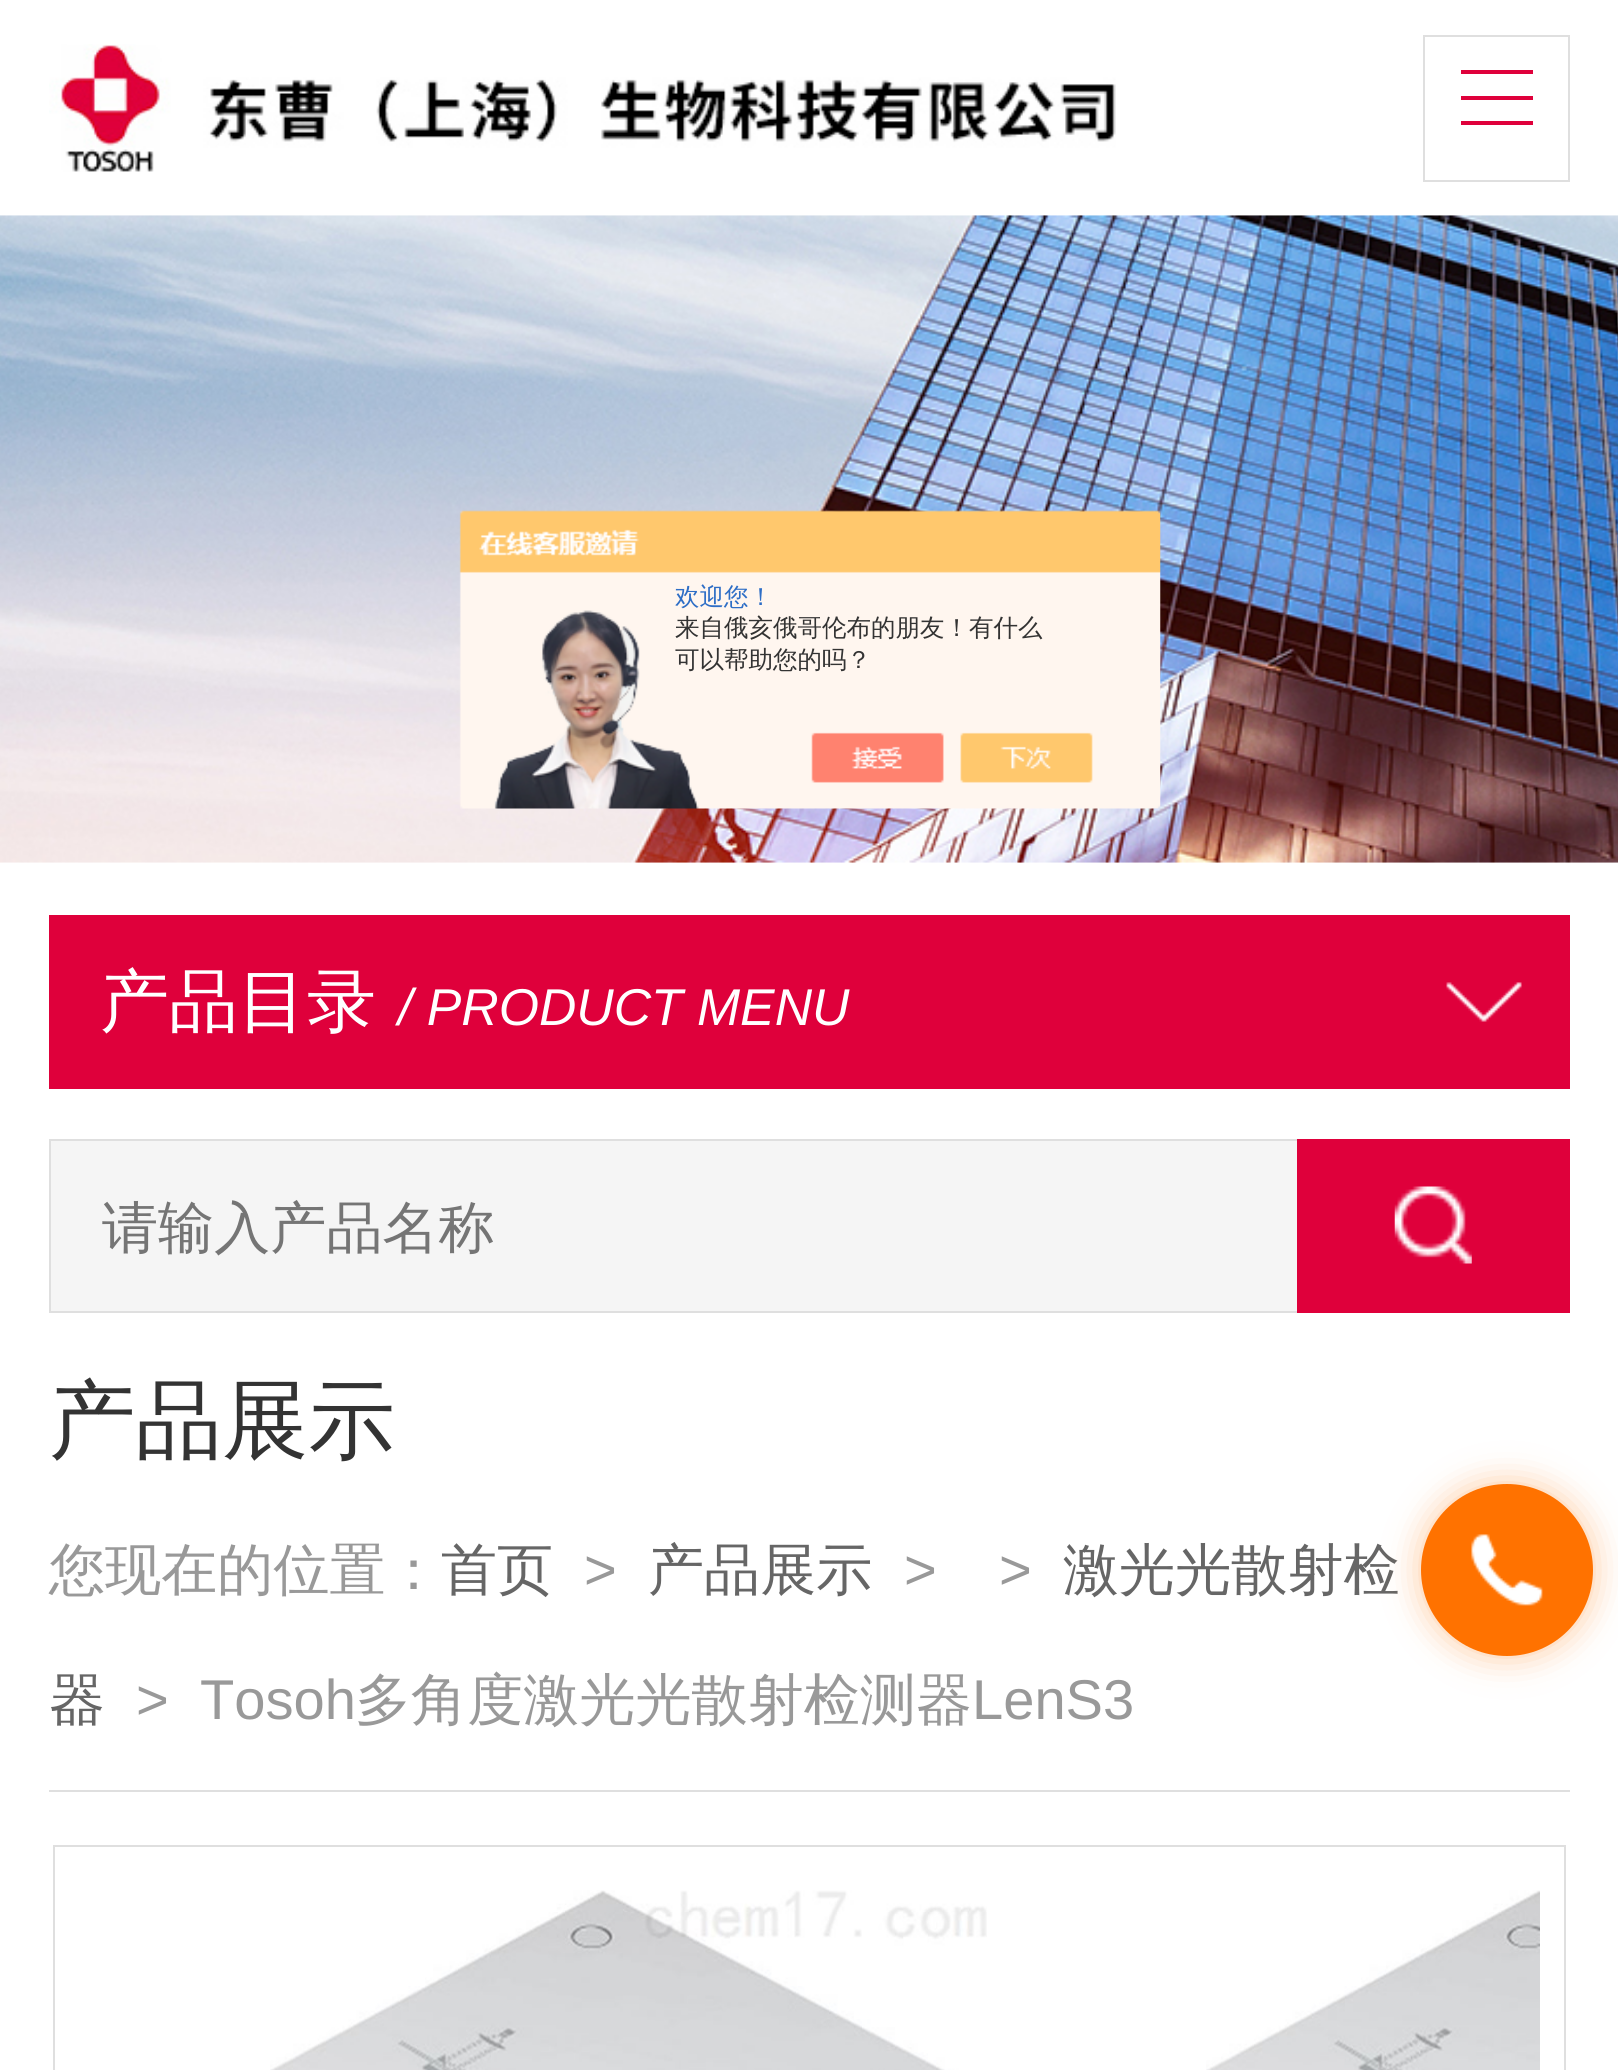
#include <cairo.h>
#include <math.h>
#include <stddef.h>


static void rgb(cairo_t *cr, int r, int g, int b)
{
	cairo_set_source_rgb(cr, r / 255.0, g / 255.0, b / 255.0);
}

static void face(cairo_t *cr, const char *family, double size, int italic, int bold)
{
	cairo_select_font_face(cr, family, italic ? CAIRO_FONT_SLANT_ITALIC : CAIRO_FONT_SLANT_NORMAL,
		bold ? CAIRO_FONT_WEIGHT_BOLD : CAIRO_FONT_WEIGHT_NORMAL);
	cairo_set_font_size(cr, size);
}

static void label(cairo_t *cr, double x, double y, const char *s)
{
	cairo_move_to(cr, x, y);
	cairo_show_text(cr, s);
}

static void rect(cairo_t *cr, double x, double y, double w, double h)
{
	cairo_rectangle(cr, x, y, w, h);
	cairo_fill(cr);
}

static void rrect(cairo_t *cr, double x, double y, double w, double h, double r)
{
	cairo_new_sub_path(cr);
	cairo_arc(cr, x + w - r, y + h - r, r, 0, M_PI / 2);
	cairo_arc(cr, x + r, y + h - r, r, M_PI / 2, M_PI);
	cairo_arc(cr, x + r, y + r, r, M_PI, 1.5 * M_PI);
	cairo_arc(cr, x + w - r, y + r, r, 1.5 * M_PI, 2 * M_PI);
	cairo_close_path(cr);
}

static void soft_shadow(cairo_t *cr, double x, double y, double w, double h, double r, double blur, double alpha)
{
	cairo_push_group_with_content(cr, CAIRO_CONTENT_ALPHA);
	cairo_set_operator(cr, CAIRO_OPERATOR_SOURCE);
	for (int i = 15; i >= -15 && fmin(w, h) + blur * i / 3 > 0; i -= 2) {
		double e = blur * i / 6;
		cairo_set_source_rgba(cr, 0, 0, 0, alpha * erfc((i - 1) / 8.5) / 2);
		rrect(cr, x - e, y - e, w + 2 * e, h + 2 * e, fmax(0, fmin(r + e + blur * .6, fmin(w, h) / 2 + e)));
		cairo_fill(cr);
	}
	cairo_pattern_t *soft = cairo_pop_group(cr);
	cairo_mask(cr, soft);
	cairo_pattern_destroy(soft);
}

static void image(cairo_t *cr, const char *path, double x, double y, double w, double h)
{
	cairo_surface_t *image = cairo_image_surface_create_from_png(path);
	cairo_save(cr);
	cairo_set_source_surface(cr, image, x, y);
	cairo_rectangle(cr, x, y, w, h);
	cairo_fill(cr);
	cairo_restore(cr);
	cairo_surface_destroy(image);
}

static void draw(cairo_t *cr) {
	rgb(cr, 255, 255, 255);
	cairo_paint(cr);
	image(cr, "image0.png", 49, 44, 1067, 128);
	cairo_rectangle(cr, 1424, 36, 145, 145);
	rgb(cr, 223, 223, 223);
	cairo_stroke(cr);
	rgb(cr, 223, 0, 59);
	rect(cr, 1461, 70, 72, 4);
	rect(cr, 1461, 96, 72, 4);
	rect(cr, 1461, 121, 72, 4);
	image(cr, "image1.png", 0, 215, 1618, 648);
	image(cr, "image2.png", 459, 510, 702, 299);
	face(cr, "WenQuanYi Zen Hei Medium", 24.5, 0, 0);
	rgb(cr, 46, 110, 198);
	label(cr, 675, 605, "欢迎您！");
	rgb(cr, 51, 51, 51);
	label(cr, 675, 636, "来自俄亥俄哥伦布的朋友！有什么");
	label(cr, 675, 668, "可以帮助您的吗？");
	rgb(cr, 223, 0, 59);
	rect(cr, 49, 915, 1521, 174);
	face(cr, "WenQuanYi Zen Hei Medium", 69, 0, 0);
	rgb(cr, 255, 255, 255);
	label(cr, 100, 1025, "产品目录");
	face(cr, "Liberation Sans", 51.75, 1, 0);
	label(cr, 398, 1025, "/ PRODUCT MENU");
	image(cr, "image3.png", 1446, 982, 76, 40);
	rgb(cr, 245, 245, 245);
	rect(cr, 51, 1141, 1246, 170);
	rgb(cr, 223, 223, 223);
	rect(cr, 49, 1139, 1248, 2);
	rect(cr, 49, 1311, 1248, 2);
	rect(cr, 49, 1139, 2, 174);
	face(cr, "WenQuanYi Zen Hei Medium", 56.1, 0, 0);
	rgb(cr, 117, 117, 117);
	label(cr, 102, 1247, "请输入产品名称");
	rgb(cr, 223, 0, 59);
	rect(cr, 1297, 1139, 273, 174);
	image(cr, "image4.png", 1394, 1186, 78, 78);
	rgb(cr, 223, 223, 223);
	rect(cr, 49, 1790, 1521, 2);
	face(cr, "WenQuanYi Zen Hei Medium", 86.5, 0, 0);
	rgb(cr, 51, 51, 51);
	label(cr, 49, 1450, "产品展示");
	face(cr, "WenQuanYi Zen Hei Medium", 56.1, 0, 0);
	rgb(cr, 153, 153, 153);
	label(cr, 49, 1589, "您现在的位置：");
	rgb(cr, 102, 102, 102);
	label(cr, 441, 1589, "首页");
	face(cr, "Liberation Sans", 56.1, 0, 0);
	rgb(cr, 153, 153, 153);
	label(cr, 584, 1589, ">");
	face(cr, "WenQuanYi Zen Hei Medium", 56.1, 0, 0);
	rgb(cr, 102, 102, 102);
	label(cr, 648, 1589, "产品展示");
	face(cr, "Liberation Sans", 56.1, 0, 0);
	rgb(cr, 153, 153, 153);
	label(cr, 904, 1589, ">    >");
	face(cr, "WenQuanYi Zen Hei Medium", 56.1, 0, 0);
	rgb(cr, 102, 102, 102);
	label(cr, 1063, 1589, "激光光散射检");
	label(cr, 49, 1719, "器");
	face(cr, "Liberation Sans", 56.1, 0, 0);
	rgb(cr, 153, 153, 153);
	label(cr, 136, 1719, ">  Tosoh");
	face(cr, "WenQuanYi Zen Hei Medium", 56.1, 0, 0);
	label(cr, 355, 1719, "多角度激光光散射检测器");
	face(cr, "Liberation Sans", 56.1, 0, 0);
	label(cr, 972, 1719, "LenS3");
	cairo_rectangle(cr, 54, 1846, 1511, 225);
	rgb(cr, 223, 223, 223);
	cairo_stroke(cr);
	image(cr, "image5.png", 270, 1890, 717, 180);
	image(cr, "image6.png", 1206, 1890, 334, 180);
	rgb(cr, 255, 114, 0);
	soft_shadow(cr, 1421, 1484, 172, 172, 86, 17.5, 0.4);
	rgb(cr, 255, 114, 0);
	cairo_arc(cr, 1507, 1570, 86, 0, 2 * M_PI);
	cairo_fill(cr);
	image(cr, "image7.png", 1471, 1534, 72, 72);
}

int main(void) {
	cairo_surface_t *surface = cairo_image_surface_create(CAIRO_FORMAT_RGB24, 1618, 2070);
	cairo_t *cr = cairo_create(surface);
	cairo_font_options_t *options = cairo_font_options_create();
	cairo_font_options_set_hint_metrics(options, CAIRO_HINT_METRICS_OFF);
	cairo_font_options_set_hint_style(options, CAIRO_HINT_STYLE_NONE);
	cairo_set_font_options(cr, options);
	cairo_set_miter_limit(cr, 4);
	draw(cr);
	cairo_surface_write_to_png(surface, "render.png");
	cairo_font_options_destroy(options);
	cairo_destroy(cr);
	cairo_surface_destroy(surface);
	return 0;
}
